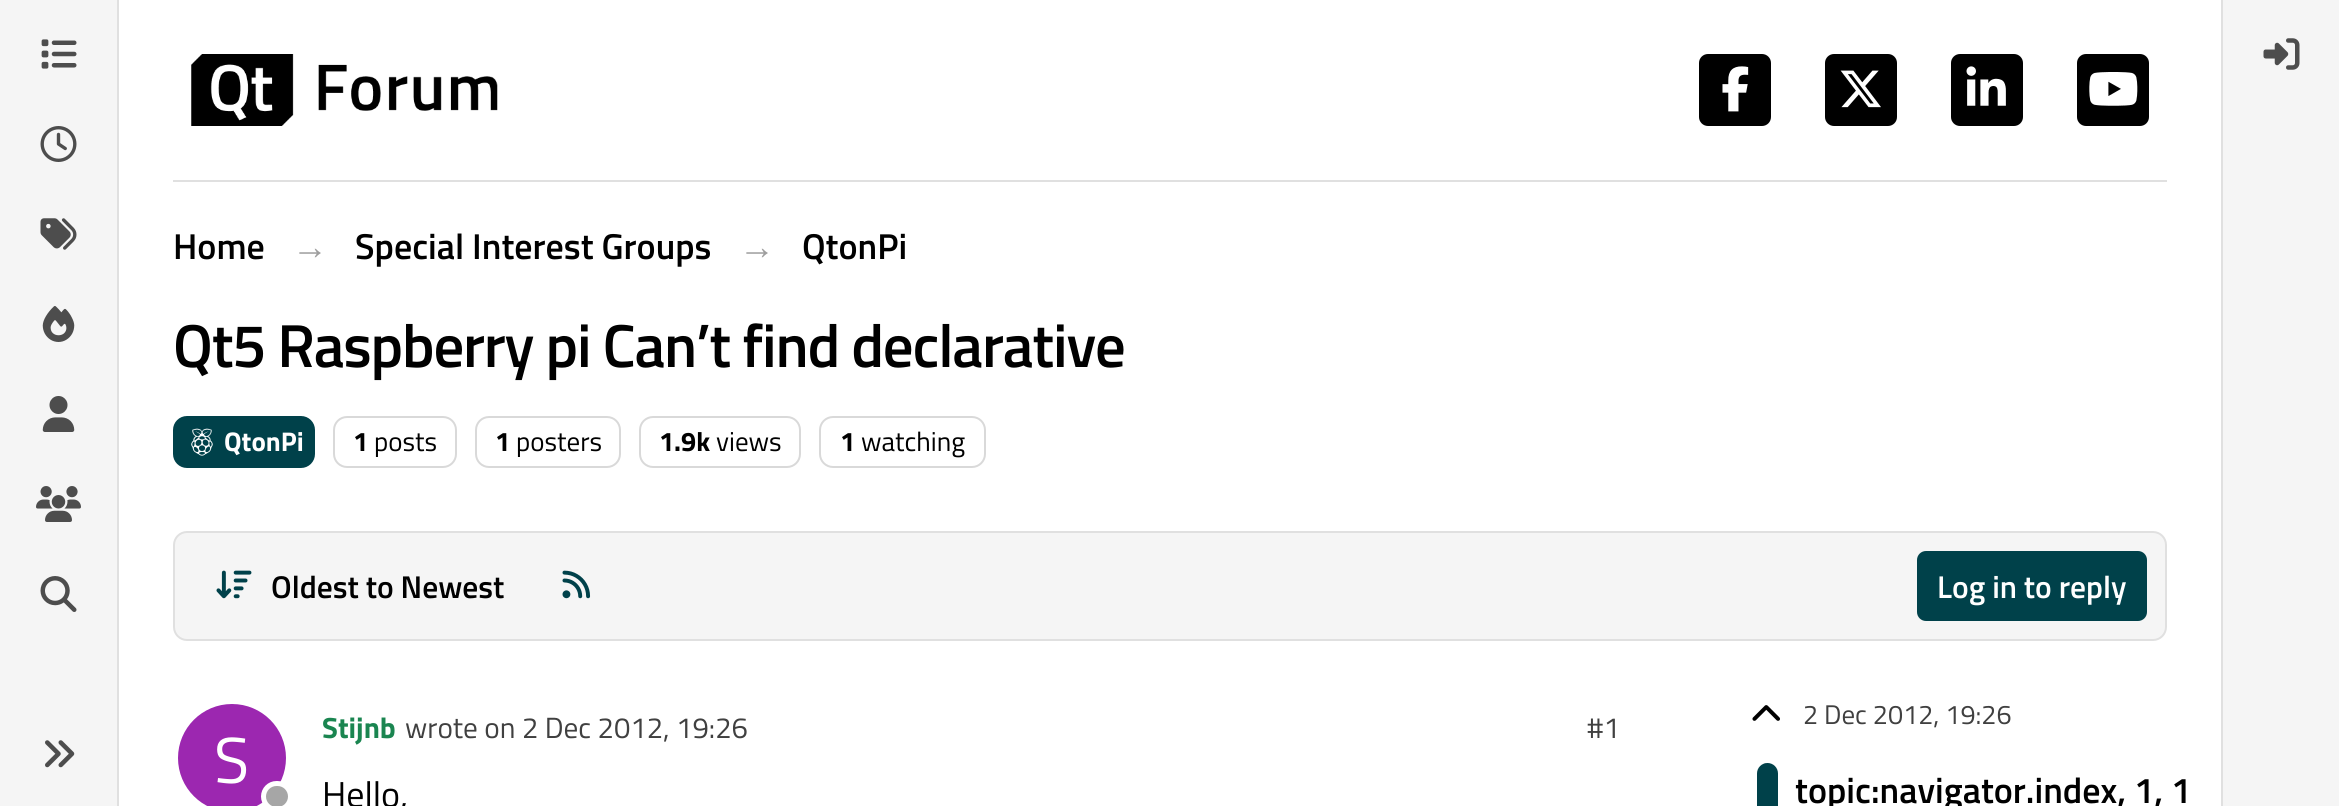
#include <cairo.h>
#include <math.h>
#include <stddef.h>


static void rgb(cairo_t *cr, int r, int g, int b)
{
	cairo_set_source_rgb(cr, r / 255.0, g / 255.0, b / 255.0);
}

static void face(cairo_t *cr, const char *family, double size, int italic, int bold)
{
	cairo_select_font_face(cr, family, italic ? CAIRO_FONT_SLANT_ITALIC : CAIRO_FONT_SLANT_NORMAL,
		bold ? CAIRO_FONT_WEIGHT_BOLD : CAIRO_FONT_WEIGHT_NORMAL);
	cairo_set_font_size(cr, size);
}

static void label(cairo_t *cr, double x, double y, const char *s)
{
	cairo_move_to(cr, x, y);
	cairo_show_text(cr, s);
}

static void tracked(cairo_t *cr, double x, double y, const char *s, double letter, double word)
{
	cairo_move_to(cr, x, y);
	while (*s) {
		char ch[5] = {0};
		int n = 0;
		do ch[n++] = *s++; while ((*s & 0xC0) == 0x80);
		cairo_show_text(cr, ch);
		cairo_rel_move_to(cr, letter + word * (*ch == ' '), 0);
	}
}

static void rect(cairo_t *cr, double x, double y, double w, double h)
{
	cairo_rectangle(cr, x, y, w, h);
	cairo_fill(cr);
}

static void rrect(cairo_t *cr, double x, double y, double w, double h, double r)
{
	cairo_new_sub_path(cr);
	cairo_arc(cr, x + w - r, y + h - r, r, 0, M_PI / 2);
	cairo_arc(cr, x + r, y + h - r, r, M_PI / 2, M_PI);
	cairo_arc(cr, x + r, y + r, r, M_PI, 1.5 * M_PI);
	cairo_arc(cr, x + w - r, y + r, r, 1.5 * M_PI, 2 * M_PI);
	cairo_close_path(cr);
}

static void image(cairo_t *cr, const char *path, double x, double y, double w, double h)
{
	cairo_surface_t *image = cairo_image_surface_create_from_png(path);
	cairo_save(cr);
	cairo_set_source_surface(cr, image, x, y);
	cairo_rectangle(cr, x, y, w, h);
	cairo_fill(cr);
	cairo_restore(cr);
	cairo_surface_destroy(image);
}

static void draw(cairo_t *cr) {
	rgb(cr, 255, 255, 255);
	cairo_paint(cr);
	rgb(cr, 245, 245, 245);
	rect(cr, 0, 0, 117, 806);
	rgb(cr, 224, 224, 224);
	rect(cr, 117, 0, 2, 806);
	image(cr, "image0.png", 41, 39, 36, 30);
	image(cr, "image1.png", 40, 126, 37, 36);
	image(cr, "image2.png", 40, 218, 37, 32);
	image(cr, "image3.png", 42, 306, 33, 36);
	image(cr, "image4.png", 42, 396, 33, 36);
	image(cr, "image5.png", 36, 486, 45, 36);
	image(cr, "image6.png", 40, 576, 37, 36);
	image(cr, "image7.png", 45, 740, 30, 28);
	rect(cr, 173, 180, 1994, 2);
	image(cr, "image8.png", 191, 54, 307, 72);
	rgb(cr, 0, 0, 0);
	rrect(cr, 1699, 54, 72, 72, 9);
	cairo_fill(cr);
	image(cr, "image9.png", 1722, 66, 27, 46);
	rrect(cr, 1825, 54, 72, 72, 9);
	cairo_fill(cr);
	image(cr, "image10.png", 1840, 70, 41, 38);
	rrect(cr, 1951, 54, 72, 72, 9);
	cairo_fill(cr);
	image(cr, "image11.png", 1966, 66, 40, 40);
	rrect(cr, 2077, 54, 72, 72, 9);
	cairo_fill(cr);
	image(cr, "image12.png", 2089, 72, 49, 34);
	face(cr, "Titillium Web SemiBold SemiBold", 36, 0, 0);
	label(cr, 173, 259, "Home");
	face(cr, "Liberation Sans", 36, 0, 1);
	rgb(cr, 158, 158, 158);
	label(cr, 292, 259, "→");
	face(cr, "Titillium Web SemiBold SemiBold", 36, 0, 0);
	rgb(cr, 0, 0, 0);
	label(cr, 355, 259, "Special Interest Groups");
	face(cr, "Liberation Sans", 36, 0, 1);
	rgb(cr, 158, 158, 158);
	label(cr, 739, 259, "→");
	face(cr, "Titillium Web SemiBold SemiBold", 36, 0, 0);
	rgb(cr, 0, 0, 0);
	label(cr, 802, 259, "QtonPi");
	face(cr, "Titillium Web SemiBold SemiBold", 60.8, 0, 0);
	tracked(cr, 173, 367, "Qt5 Raspberry pi Can’t find declarative", -1.2, 0);
	rgb(cr, 0, 65, 74);
	rrect(cr, 174, 417, 140, 50, 13);
	cairo_fill_preserve(cr);
	cairo_stroke(cr);
	image(cr, "image13.png", 191, 428, 22, 28);
	face(cr, "Titillium Web", 27, 0, 1);
	rgb(cr, 255, 255, 255);
	label(cr, 224, 451, "QtonPi");
	rrect(cr, 334, 417, 122, 50, 13);
	rgb(cr, 217, 217, 217);
	cairo_stroke(cr);
	rgb(cr, 0, 0, 0);
	label(cr, 353, 451, "1");
	face(cr, "Titillium Web", 27, 0, 0);
	label(cr, 374, 451, "posts");
	rrect(cr, 476, 417, 144, 50, 13);
	rgb(cr, 217, 217, 217);
	cairo_stroke(cr);
	face(cr, "Titillium Web", 27, 0, 1);
	rgb(cr, 0, 0, 0);
	label(cr, 495, 451, "1");
	face(cr, "Titillium Web", 27, 0, 0);
	label(cr, 516, 451, "posters");
	rrect(cr, 640, 417, 160, 50, 13);
	rgb(cr, 217, 217, 217);
	cairo_stroke(cr);
	face(cr, "Titillium Web", 27, 0, 1);
	rgb(cr, 0, 0, 0);
	label(cr, 659, 451, "1.9k");
	face(cr, "Titillium Web", 27, 0, 0);
	label(cr, 716, 451, "views");
	rrect(cr, 820, 417, 165, 50, 13);
	rgb(cr, 217, 217, 217);
	cairo_stroke(cr);
	face(cr, "Titillium Web", 27, 0, 1);
	rgb(cr, 0, 0, 0);
	label(cr, 840, 451, "1");
	face(cr, "Titillium Web", 27, 0, 0);
	label(cr, 861, 451, "watching");
	rgb(cr, 245, 245, 245);
	rrect(cr, 174, 532, 1992, 108, 13);
	cairo_fill_preserve(cr);
	rgb(cr, 224, 224, 224);
	cairo_stroke(cr);
	image(cr, "image14.png", 216, 570, 36, 29);
	face(cr, "Titillium Web SemiBold SemiBold", 31.5, 0, 0);
	rgb(cr, 0, 0, 0);
	label(cr, 271, 598, "Oldest to Newest");
	image(cr, "image15.png", 562, 570, 29, 29);
	rgb(cr, 0, 65, 74);
	rrect(cr, 1918, 552, 228, 68, 8);
	cairo_fill_preserve(cr);
	cairo_stroke(cr);
	rgb(cr, 255, 255, 255);
	label(cr, 1937, 598, "Log in to reply");
	rgb(cr, 156, 39, 176);
	cairo_new_path(cr);
	cairo_arc(cr, 232, 758, 54, 0, 2 * M_PI);
	cairo_fill(cr);
	face(cr, "Titillium Web", 65, 0, 0);
	rgb(cr, 255, 255, 255);
	label(cr, 214, 783, "S");
	rgb(cr, 166, 166, 166);
	rrect(cr, 263.5, 783.5, 27, 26, 13);
	cairo_fill_preserve(cr);
	rgb(cr, 255, 255, 255);
	cairo_set_line_width(cr, 5);
	cairo_stroke(cr);
	face(cr, "Titillium Web", 29.25, 0, 1);
	rgb(cr, 26, 133, 80);
	label(cr, 322, 738, "Stijnb");
	face(cr, "Titillium Web", 29.25, 0, 0);
	rgb(cr, 64, 64, 64);
	label(cr, 405, 738, "wrote on 2 Dec 2012, 19:26");
	label(cr, 1587, 738, "#1");
	face(cr, "Titillium Web", 36, 0, 0);
	rgb(cr, 0, 0, 0);
	label(cr, 322, 807, "Hello,");
	image(cr, "image16.png", 1752, 705, 28, 16);
	face(cr, "Titillium Web", 27, 0, 0);
	rgb(cr, 64, 64, 64);
	label(cr, 1803, 724, "2 Dec 2012, 19:26");
	rgb(cr, 224, 224, 224);
	rect(cr, 1764, 763, 5, 1);
	rgb(cr, 0, 65, 74);
	rrect(cr, 1757, 763, 21, 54, 10.5);
	cairo_fill(cr);
	face(cr, "Titillium Web SemiBold SemiBold", 36, 0, 0);
	rgb(cr, 0, 0, 0);
	label(cr, 1795, 803, "topic:navigator.index, 1, 1");
	rgb(cr, 245, 245, 245);
	rect(cr, 2223, 0, 116, 806);
	rgb(cr, 224, 224, 224);
	rect(cr, 2221, 0, 2, 806);
	image(cr, "image17.png", 2263, 38, 37, 32);
}

int main(void) {
	cairo_surface_t *surface = cairo_image_surface_create(CAIRO_FORMAT_RGB24, 2339, 806);
	cairo_t *cr = cairo_create(surface);
	cairo_font_options_t *options = cairo_font_options_create();
	cairo_font_options_set_hint_metrics(options, CAIRO_HINT_METRICS_OFF);
	cairo_font_options_set_hint_style(options, CAIRO_HINT_STYLE_NONE);
	cairo_set_font_options(cr, options);
	cairo_set_miter_limit(cr, 4);
	draw(cr);
	cairo_surface_write_to_png(surface, "render.png");
	cairo_font_options_destroy(options);
	cairo_destroy(cr);
	cairo_surface_destroy(surface);
	return 0;
}
